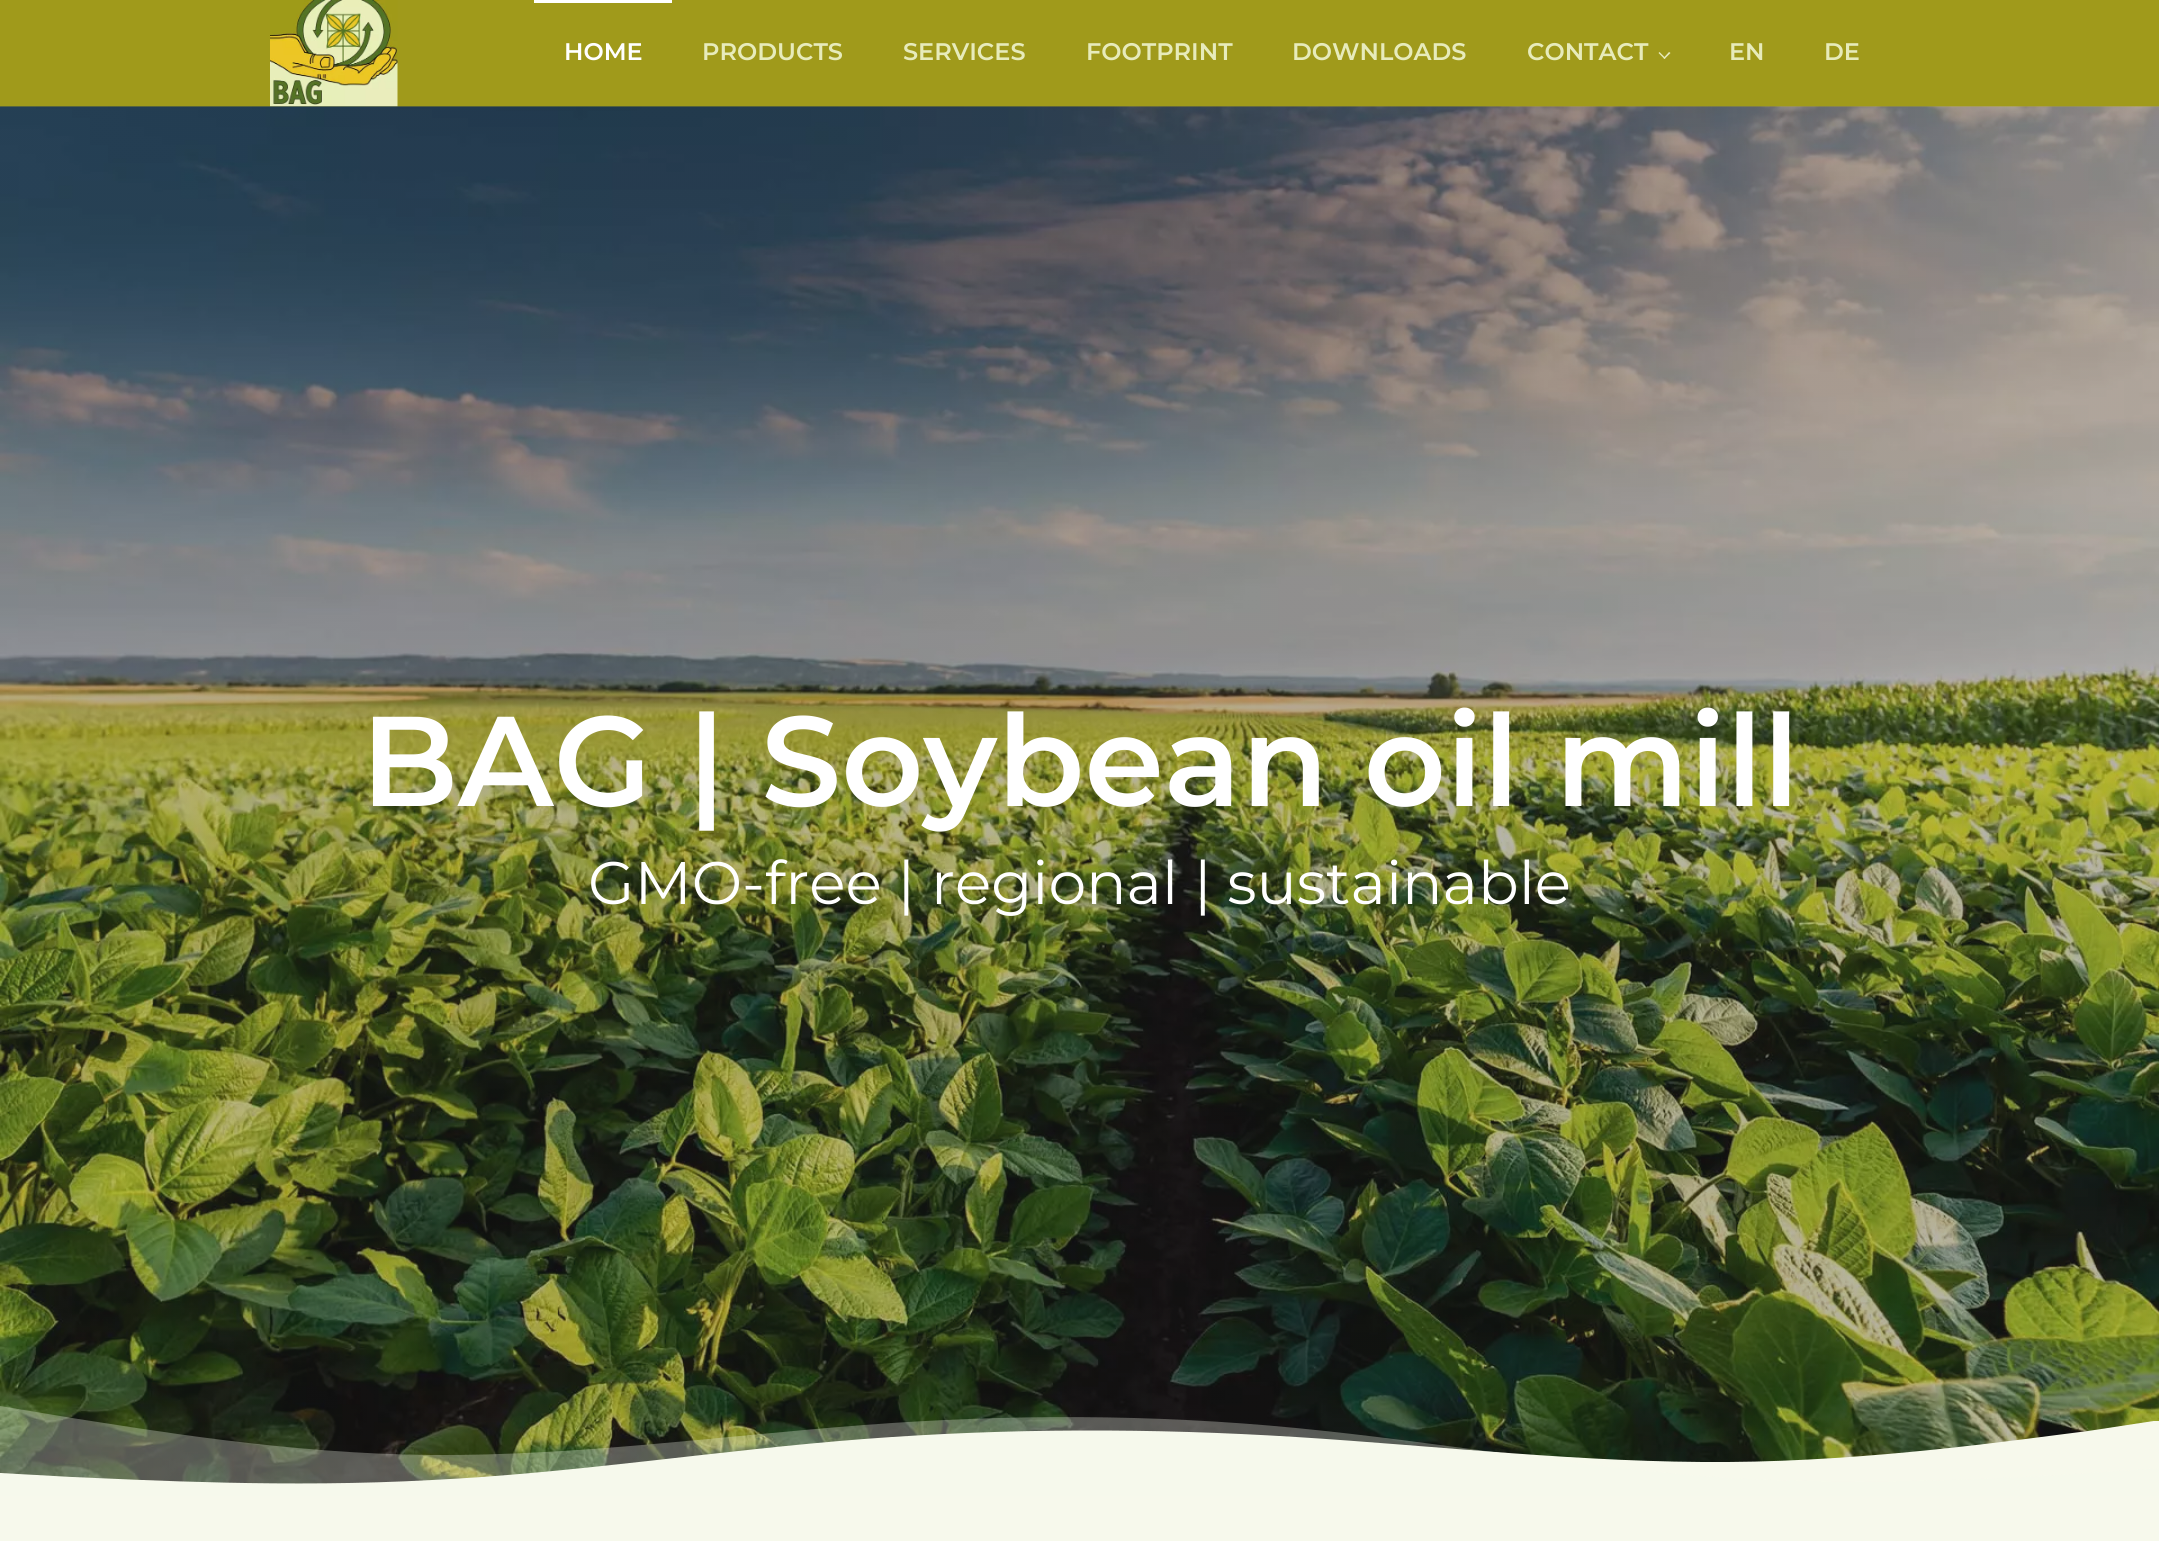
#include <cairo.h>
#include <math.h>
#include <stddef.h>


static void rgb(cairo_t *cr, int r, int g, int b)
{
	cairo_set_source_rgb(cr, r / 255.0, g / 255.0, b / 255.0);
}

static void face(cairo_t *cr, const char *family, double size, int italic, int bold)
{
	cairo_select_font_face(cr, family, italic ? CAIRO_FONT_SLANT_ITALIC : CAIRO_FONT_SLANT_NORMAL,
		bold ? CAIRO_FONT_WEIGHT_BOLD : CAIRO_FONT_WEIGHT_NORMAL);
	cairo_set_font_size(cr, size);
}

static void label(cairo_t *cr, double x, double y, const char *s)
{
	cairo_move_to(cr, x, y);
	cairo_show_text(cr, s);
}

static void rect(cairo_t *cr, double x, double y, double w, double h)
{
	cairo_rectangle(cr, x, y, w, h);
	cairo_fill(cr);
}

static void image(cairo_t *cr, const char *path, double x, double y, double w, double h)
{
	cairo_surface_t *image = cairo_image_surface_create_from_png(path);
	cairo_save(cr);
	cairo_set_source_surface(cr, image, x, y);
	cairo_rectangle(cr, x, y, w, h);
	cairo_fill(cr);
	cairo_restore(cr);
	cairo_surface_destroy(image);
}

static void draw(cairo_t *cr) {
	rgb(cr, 247, 249, 236);
	cairo_paint(cr);
	rgb(cr, 160, 154, 27);
	rect(cr, 0, 0, 2159, 107);
	image(cr, "image0.png", 270, 0, 128, 107);
	rgb(cr, 255, 255, 255);
	rect(cr, 534, 0, 138, 3);
	face(cr, "Montserrat SemiBold", 24, 0, 0);
	label(cr, 564, 60, "HOME");
	rgb(cr, 231, 235, 187);
	label(cr, 702, 60, "PRODUCTS");
	label(cr, 903, 60, "SERVICES");
	label(cr, 1086, 60, "FOOTPRINT");
	label(cr, 1292, 60, "DOWNLOADS");
	label(cr, 1527, 60, "CONTACT");
	cairo_new_path(cr);
	cairo_move_to(cr, 1670.5, 53);
	cairo_line_to(cr, 1664.5, 59);
	cairo_line_to(cr, 1663.5, 58);
	cairo_line_to(cr, 1669, 52);
	cairo_close_path(cr);
	cairo_fill(cr);
	cairo_new_path(cr);
	cairo_move_to(cr, 1665.5, 58);
	cairo_line_to(cr, 1664.5, 59);
	cairo_line_to(cr, 1658.5, 53);
	cairo_line_to(cr, 1659.5, 52);
	cairo_close_path(cr);
	cairo_fill(cr);
	label(cr, 1729, 60, "EN");
	label(cr, 1824, 60, "DE");
	image(cr, "image1.png", 0, 106, 2159, 1378);
	face(cr, "Montserrat SemiBold", 127.5, 0, 0);
	rgb(cr, 255, 255, 255);
	label(cr, 361, 806, "BAG | Soybean oil mill");
	face(cr, "Montserrat", 60, 0, 0);
	label(cr, 588, 904, "GMO-free | regional | sustainable");
	cairo_save(cr);
	cairo_rectangle(cr, 0, 1421, 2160, 75);
	cairo_clip(cr);
	rgb(cr, 247, 249, 236);
	cairo_new_path(cr);
	cairo_move_to(cr, 0, 1473);
	cairo_line_to(cr, 72, 1477);
	cairo_curve_to(cr, 144, 1480, 288, 1488, 432, 1480);
	cairo_curve_to(cr, 576, 1473, 720, 1450, 864, 1439);
	cairo_curve_to(cr, 1008, 1428, 1152, 1428, 1296, 1437);
	cairo_curve_to(cr, 1440, 1446, 1584, 1463, 1728, 1462);
	cairo_curve_to(cr, 1872, 1461, 2016, 1440, 2088, 1431);
	cairo_line_to(cr, 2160, 1420);
	cairo_line_to(cr, 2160, 1496);
	cairo_line_to(cr, 0, 1496);
	cairo_close_path(cr);
	cairo_fill(cr);
	cairo_restore(cr);
	cairo_set_source_rgba(cr, 0.969, 0.976, 0.925, 0.31);
	cairo_new_path(cr);
	cairo_move_to(cr, 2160, 1468);
	cairo_line_to(cr, 2088, 1473);
	cairo_curve_to(cr, 2016, 1478, 1872, 1486, 1728, 1478);
	cairo_curve_to(cr, 1584, 1468, 1440, 1442, 1296, 1428);
	cairo_curve_to(cr, 1152, 1414, 1008, 1414, 864, 1425);
	cairo_curve_to(cr, 720, 1436, 576, 1456, 432, 1455);
	cairo_curve_to(cr, 288, 1454, 144, 1429, 72, 1418);
	cairo_line_to(cr, 0, 1406);
	cairo_line_to(cr, 0, 1496);
	cairo_line_to(cr, 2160, 1496);
	cairo_close_path(cr);
	cairo_fill(cr);
}

int main(void) {
	cairo_surface_t *surface = cairo_image_surface_create(CAIRO_FORMAT_RGB24, 2159, 1541);
	cairo_t *cr = cairo_create(surface);
	cairo_font_options_t *options = cairo_font_options_create();
	cairo_font_options_set_hint_metrics(options, CAIRO_HINT_METRICS_OFF);
	cairo_font_options_set_hint_style(options, CAIRO_HINT_STYLE_NONE);
	cairo_set_font_options(cr, options);
	cairo_set_miter_limit(cr, 4);
	draw(cr);
	cairo_surface_write_to_png(surface, "render.png");
	cairo_font_options_destroy(options);
	cairo_destroy(cr);
	cairo_surface_destroy(surface);
	return 0;
}
